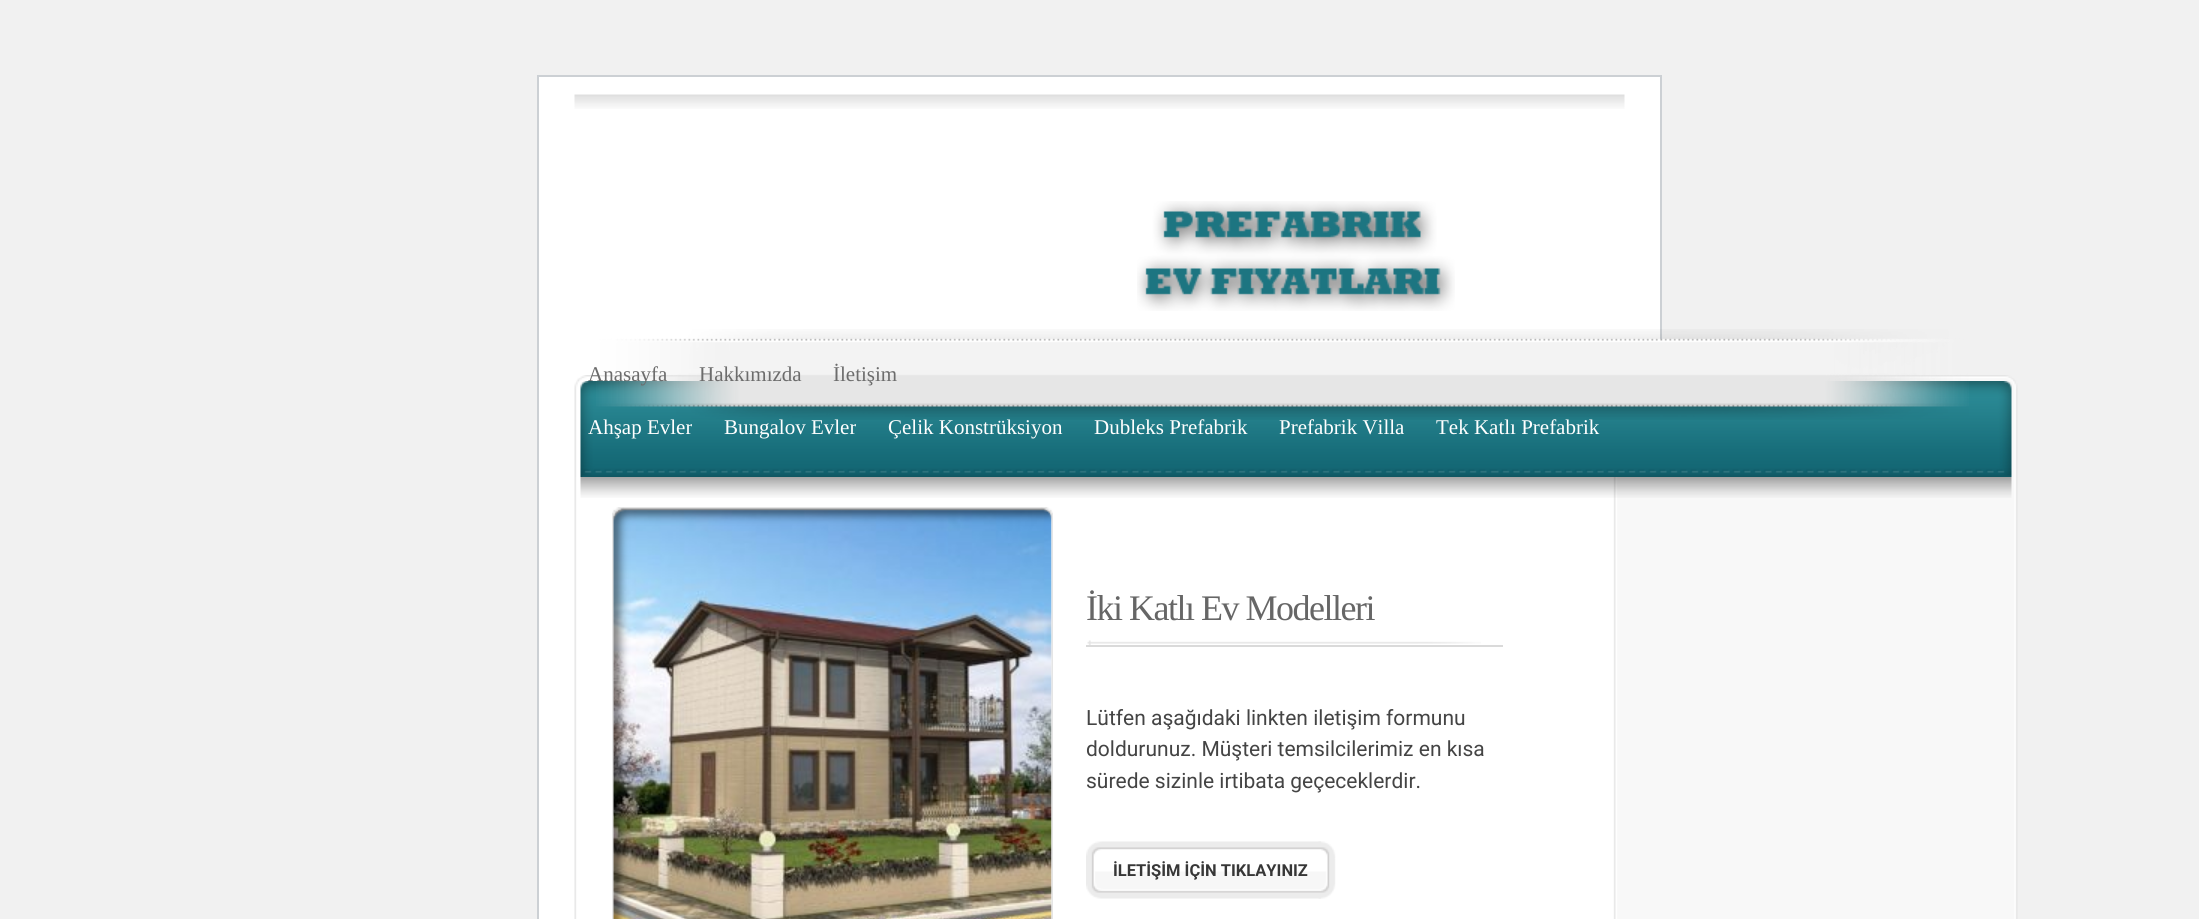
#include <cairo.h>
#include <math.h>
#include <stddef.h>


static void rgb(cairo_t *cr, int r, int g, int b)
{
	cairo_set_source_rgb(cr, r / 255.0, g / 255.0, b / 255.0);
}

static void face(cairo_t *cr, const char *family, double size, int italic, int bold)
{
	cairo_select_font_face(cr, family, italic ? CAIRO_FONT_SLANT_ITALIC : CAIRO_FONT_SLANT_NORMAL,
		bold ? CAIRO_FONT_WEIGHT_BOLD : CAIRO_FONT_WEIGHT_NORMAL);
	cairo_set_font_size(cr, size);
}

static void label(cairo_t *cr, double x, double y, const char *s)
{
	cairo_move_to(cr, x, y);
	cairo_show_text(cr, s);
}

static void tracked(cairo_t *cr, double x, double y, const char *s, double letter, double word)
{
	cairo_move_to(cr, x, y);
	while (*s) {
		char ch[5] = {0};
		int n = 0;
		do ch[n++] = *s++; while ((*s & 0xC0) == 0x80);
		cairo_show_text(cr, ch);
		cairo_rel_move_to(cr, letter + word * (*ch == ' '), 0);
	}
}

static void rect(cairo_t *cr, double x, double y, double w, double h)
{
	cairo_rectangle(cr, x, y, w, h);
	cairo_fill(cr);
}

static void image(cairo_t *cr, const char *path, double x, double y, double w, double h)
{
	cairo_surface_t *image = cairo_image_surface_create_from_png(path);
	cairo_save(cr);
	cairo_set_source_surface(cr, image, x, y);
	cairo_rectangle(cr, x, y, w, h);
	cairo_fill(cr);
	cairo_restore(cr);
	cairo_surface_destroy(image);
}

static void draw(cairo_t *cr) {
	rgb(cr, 241, 241, 241);
	cairo_paint(cr);
	rgb(cr, 255, 255, 255);
	cairo_rectangle(cr, 538, 76, 1123, 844);
	cairo_fill_preserve(cr);
	rgb(cr, 204, 208, 212);
	cairo_stroke(cr);
	image(cr, "image0.png", 574, 94, 1051, 15);
	image(cr, "image1.png", 1137, 201, 318, 110);
	image(cr, "image3.png", 574, 375, 1444, 102);
	image(cr, "image4.png", 580, 381, 1432, 96);
	face(cr, "Liberation Serif", 21, 0, 0);
	rgb(cr, 255, 255, 255);
	label(cr, 588, 434, "Ahşap Evler");
	label(cr, 724, 434, "Bungalov Evler");
	label(cr, 888, 434, "Çelik Konstrüksiyon");
	label(cr, 1094, 434, "Dubleks Prefabrik");
	label(cr, 1279, 434, "Prefabrik Villa");
	label(cr, 1436, 434, "Tek Katlı Prefabrik");
	image(cr, "image2.png", 596, 329, 1373, 91);
	rgb(cr, 108, 108, 108);
	label(cr, 588, 381, "Anasayfa");
	label(cr, 699, 381, "Hakkımızda");
	label(cr, 833, 381, "İletişim");
	image(cr, "image6.png", 574, 477, 1444, 442);
	image(cr, "image5.png", 580, 477, 1432, 21);
	image(cr, "image8.png", 613, 509, 439, 410);
	image(cr, "image7.png", 612, 507, 441, 412);
	image(cr, "image9.png", 1087, 640, 394, 5);
	rgb(cr, 218, 218, 218);
	rect(cr, 1086, 645, 417, 2);
	face(cr, "Liberation Serif", 36, 0, 0);
	rgb(cr, 102, 102, 102);
	tracked(cr, 1086, 620, "İki Katlı Ev Modelleri", -1.5, 0);
	face(cr, "Roboto", 21, 0, 0);
	rgb(cr, 68, 68, 68);
	label(cr, 1086, 725, "Lütfen aşağıdaki linkten iletişim formunu");
	label(cr, 1086, 756, "doldurunuz. Müşteri temsilcilerimiz en kısa");
	label(cr, 1086, 788, "sürede sizinle irtibata geçeceklerdir.");
	image(cr, "image10.png", 1318, 841, 18, 58);
	image(cr, "image11.png", 1086, 841, 235, 58);
	face(cr, "Roboto", 16.5, 0, 1);
	rgb(cr, 55, 55, 55);
	label(cr, 1113, 876, "İLETİŞİM İÇİN TIKLAYINIZ");
}

int main(void) {
	cairo_surface_t *surface = cairo_image_surface_create(CAIRO_FORMAT_RGB24, 2199, 919);
	cairo_t *cr = cairo_create(surface);
	cairo_font_options_t *options = cairo_font_options_create();
	cairo_font_options_set_hint_metrics(options, CAIRO_HINT_METRICS_OFF);
	cairo_font_options_set_hint_style(options, CAIRO_HINT_STYLE_NONE);
	cairo_set_font_options(cr, options);
	cairo_set_miter_limit(cr, 4);
	draw(cr);
	cairo_surface_write_to_png(surface, "render.png");
	cairo_font_options_destroy(options);
	cairo_destroy(cr);
	cairo_surface_destroy(surface);
	return 0;
}
